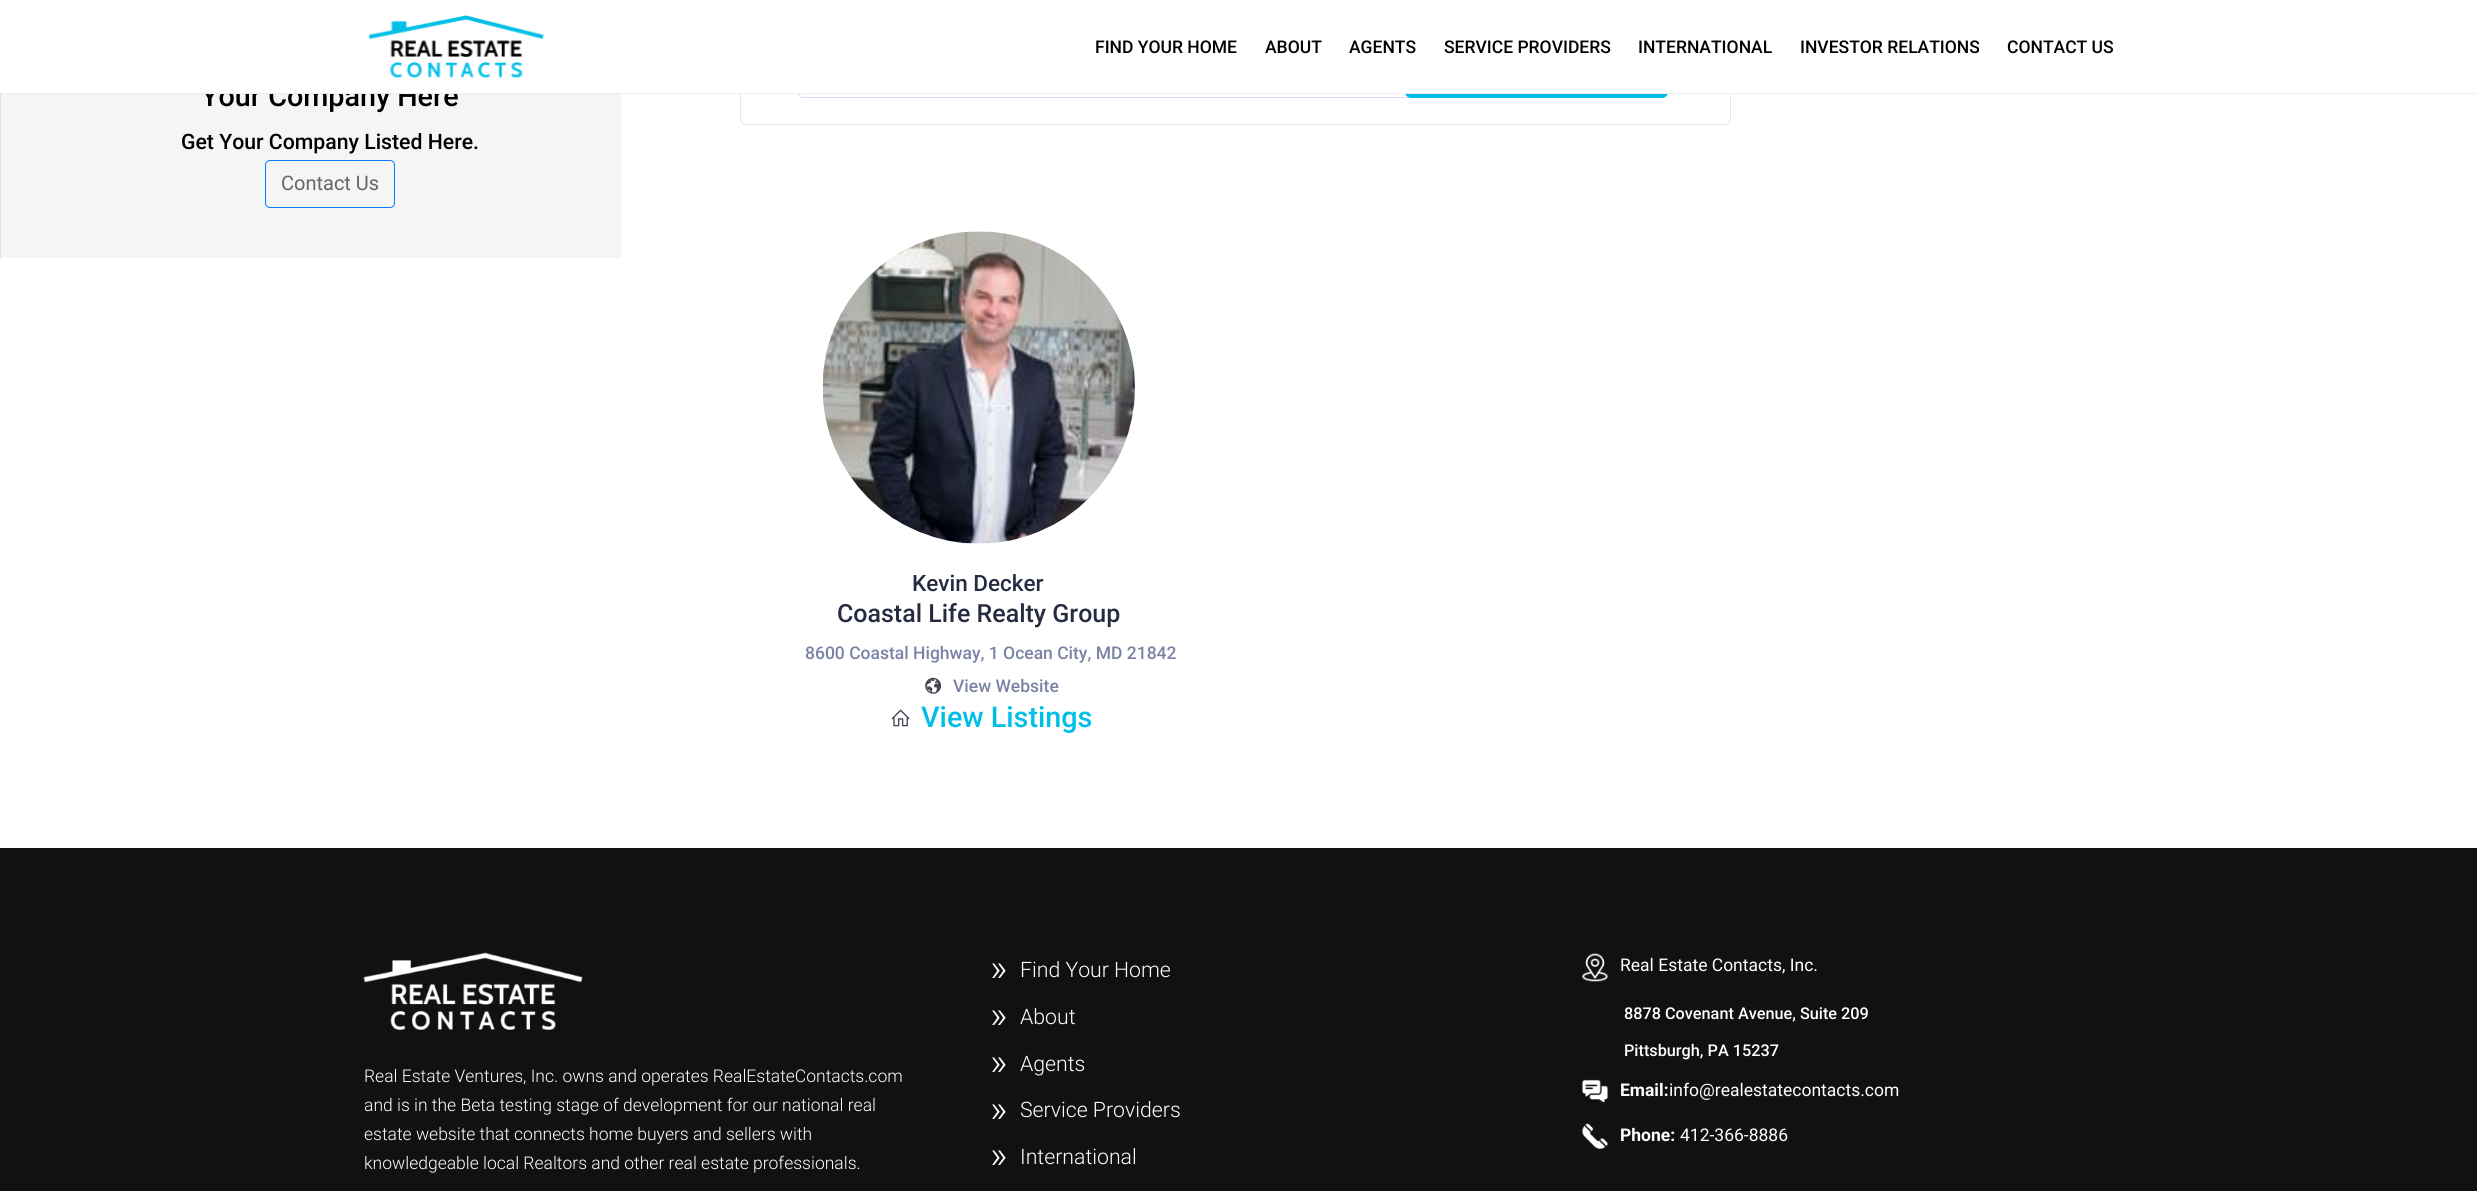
#include <cairo.h>
#include <math.h>
#include <stddef.h>


static void rgb(cairo_t *cr, int r, int g, int b)
{
	cairo_set_source_rgb(cr, r / 255.0, g / 255.0, b / 255.0);
}

static void face(cairo_t *cr, const char *family, double size, int italic, int bold)
{
	cairo_select_font_face(cr, family, italic ? CAIRO_FONT_SLANT_ITALIC : CAIRO_FONT_SLANT_NORMAL,
		bold ? CAIRO_FONT_WEIGHT_BOLD : CAIRO_FONT_WEIGHT_NORMAL);
	cairo_set_font_size(cr, size);
}

static void label(cairo_t *cr, double x, double y, const char *s)
{
	cairo_move_to(cr, x, y);
	cairo_show_text(cr, s);
}

static void rect(cairo_t *cr, double x, double y, double w, double h)
{
	cairo_rectangle(cr, x, y, w, h);
	cairo_fill(cr);
}

static void rrect(cairo_t *cr, double x, double y, double w, double h, double r)
{
	cairo_new_sub_path(cr);
	cairo_arc(cr, x + w - r, y + h - r, r, 0, M_PI / 2);
	cairo_arc(cr, x + r, y + h - r, r, M_PI / 2, M_PI);
	cairo_arc(cr, x + r, y + r, r, M_PI, 1.5 * M_PI);
	cairo_arc(cr, x + w - r, y + r, r, 1.5 * M_PI, 2 * M_PI);
	cairo_close_path(cr);
}

static void image(cairo_t *cr, const char *path, double x, double y, double w, double h)
{
	cairo_surface_t *image = cairo_image_surface_create_from_png(path);
	cairo_save(cr);
	cairo_set_source_surface(cr, image, x, y);
	cairo_rectangle(cr, x, y, w, h);
	cairo_fill(cr);
	cairo_restore(cr);
	cairo_surface_destroy(image);
}

static void draw(cairo_t *cr) {
	rgb(cr, 17, 17, 17);
	cairo_paint(cr);
	rgb(cr, 255, 255, 255);
	rect(cr, 0, 94, 2477, 754);
	rgb(cr, 245, 245, 245);
	rect(cr, 1, 94, 620, 164);
	face(cr, "Roboto Medium", 28.75, 0, 0);
	rgb(cr, 0, 0, 0);
	label(cr, 201, 106, "Your Company Here");
	rrect(cr, 740.5, 5.5, 990, 119, 5.5);
	rgb(cr, 227, 230, 239);
	cairo_set_line_width(cr, 1);
	cairo_stroke(cr);
	rrect(cr, 798.5, 33.5, 612, 64, 4.5);
	rgb(cr, 219, 218, 247);
	cairo_stroke(cr);
	rgb(cr, 0, 191, 231);
	rrect(cr, 1405, 33, 263, 65, 6);
	cairo_fill(cr);
	rgb(cr, 255, 255, 255);
	rect(cr, 0, 0, 2477, 93);
	rgb(cr, 238, 238, 238);
	rect(cr, 0, 93, 2477, 1);
	image(cr, "image0.png", 368, 15, 176, 63);
	face(cr, "Roboto Medium", 17.5, 0, 0);
	rgb(cr, 0, 0, 0);
	label(cr, 1095, 53, "FIND YOUR HOME");
	label(cr, 1265, 53, "ABOUT");
	label(cr, 1349, 53, "AGENTS");
	label(cr, 1444, 53, "SERVICE PROVIDERS");
	label(cr, 1638, 53, "INTERNATIONAL");
	label(cr, 1800, 53, "INVESTOR RELATIONS");
	label(cr, 2007, 53, "CONTACT US");
	rgb(cr, 221, 221, 221);
	rect(cr, 0, 94, 1, 164);
	face(cr, "Roboto Medium", 21.25, 0, 0);
	rgb(cr, 0, 0, 0);
	label(cr, 181, 149, "Get Your Company Listed Here.");
	rrect(cr, 265.5, 160.5, 129, 47, 4.5);
	rgb(cr, 0, 123, 255);
	cairo_stroke(cr);
	face(cr, "Roboto", 20, 0, 0);
	rgb(cr, 102, 102, 102);
	label(cr, 281, 190, "Contact Us");
	image(cr, "image1.png", 822, 231, 313, 313);
	face(cr, "Roboto Medium", 22.5, 0, 0);
	rgb(cr, 39, 43, 65);
	label(cr, 912, 591, "Kevin Decker");
	face(cr, "Roboto Medium", 25, 0, 0);
	label(cr, 837, 622, "Coastal Life Realty Group");
	face(cr, "Roboto Medium", 17.5, 0, 0);
	rgb(cr, 122, 130, 166);
	label(cr, 805, 659, "8600 Coastal Highway, 1 Ocean City, MD 21842");
	image(cr, "image2.png", 925, 677, 17, 17);
	label(cr, 953, 692, "View Website");
	image(cr, "image3.png", 891, 709, 19, 18);
	face(cr, "Roboto Medium", 28.75, 0, 0);
	rgb(cr, 0, 191, 231);
	label(cr, 921, 727, "View Listings");
	image(cr, "image4.png", 363, 952, 220, 78);
	face(cr, "Roboto Light", 17.5, 0, 0);
	rgb(cr, 255, 255, 255);
	label(cr, 364, 1082, "Real Estate Ventures, Inc. owns and operates RealEstateContacts.com");
	label(cr, 364, 1111, "and is in the Beta testing stage of development for our national real");
	label(cr, 364, 1140, "estate website that connects home buyers and sellers with");
	label(cr, 364, 1169, "knowledgeable local Realtors and other real estate professionals.");
	face(cr, "Roboto Light", 38, 0, 0);
	label(cr, 990, 981, "»");
	face(cr, "Roboto Light", 21.25, 0, 0);
	label(cr, 1020, 977, "Find Your Home");
	face(cr, "Roboto Light", 38, 0, 0);
	label(cr, 990, 1028, "»");
	face(cr, "Roboto Light", 21.25, 0, 0);
	label(cr, 1020, 1024, "About");
	face(cr, "Roboto Light", 38, 0, 0);
	label(cr, 990, 1075, "»");
	face(cr, "Roboto Light", 21.25, 0, 0);
	label(cr, 1020, 1071, "Agents");
	face(cr, "Roboto Light", 38, 0, 0);
	label(cr, 990, 1122, "»");
	face(cr, "Roboto Light", 21.25, 0, 0);
	label(cr, 1020, 1117, "Service Providers");
	face(cr, "Roboto Light", 38, 0, 0);
	label(cr, 990, 1168, "»");
	face(cr, "Roboto Light", 21.25, 0, 0);
	label(cr, 1020, 1164, "International");
	image(cr, "image5.png", 1582, 953, 26, 29);
	face(cr, "Roboto", 17.5, 0, 0);
	label(cr, 1620, 971, "Real Estate Contacts, Inc.");
	face(cr, "Roboto Medium", 16.25, 0, 0);
	label(cr, 1624, 1019, "8878 Covenant Avenue, Suite 209");
	label(cr, 1624, 1056, "Pittsburgh, PA 15237");
	image(cr, "image6.png", 1582, 1079, 26, 24);
	face(cr, "Roboto", 17.5, 0, 1);
	label(cr, 1620, 1096, "Email:");
	face(cr, "Roboto", 17.5, 0, 0);
	label(cr, 1669, 1096, "info@realestatecontacts.com");
	image(cr, "image7.png", 1582, 1123, 26, 26);
	face(cr, "Roboto", 17.5, 0, 1);
	label(cr, 1620, 1141, "Phone:");
	face(cr, "Roboto", 17.5, 0, 0);
	label(cr, 1680, 1141, "412-366-8886");
}

int main(void) {
	cairo_surface_t *surface = cairo_image_surface_create(CAIRO_FORMAT_RGB24, 2477, 1191);
	cairo_t *cr = cairo_create(surface);
	cairo_font_options_t *options = cairo_font_options_create();
	cairo_font_options_set_hint_metrics(options, CAIRO_HINT_METRICS_OFF);
	cairo_font_options_set_hint_style(options, CAIRO_HINT_STYLE_NONE);
	cairo_set_font_options(cr, options);
	cairo_set_miter_limit(cr, 4);
	draw(cr);
	cairo_surface_write_to_png(surface, "render.png");
	cairo_font_options_destroy(options);
	cairo_destroy(cr);
	cairo_surface_destroy(surface);
	return 0;
}
